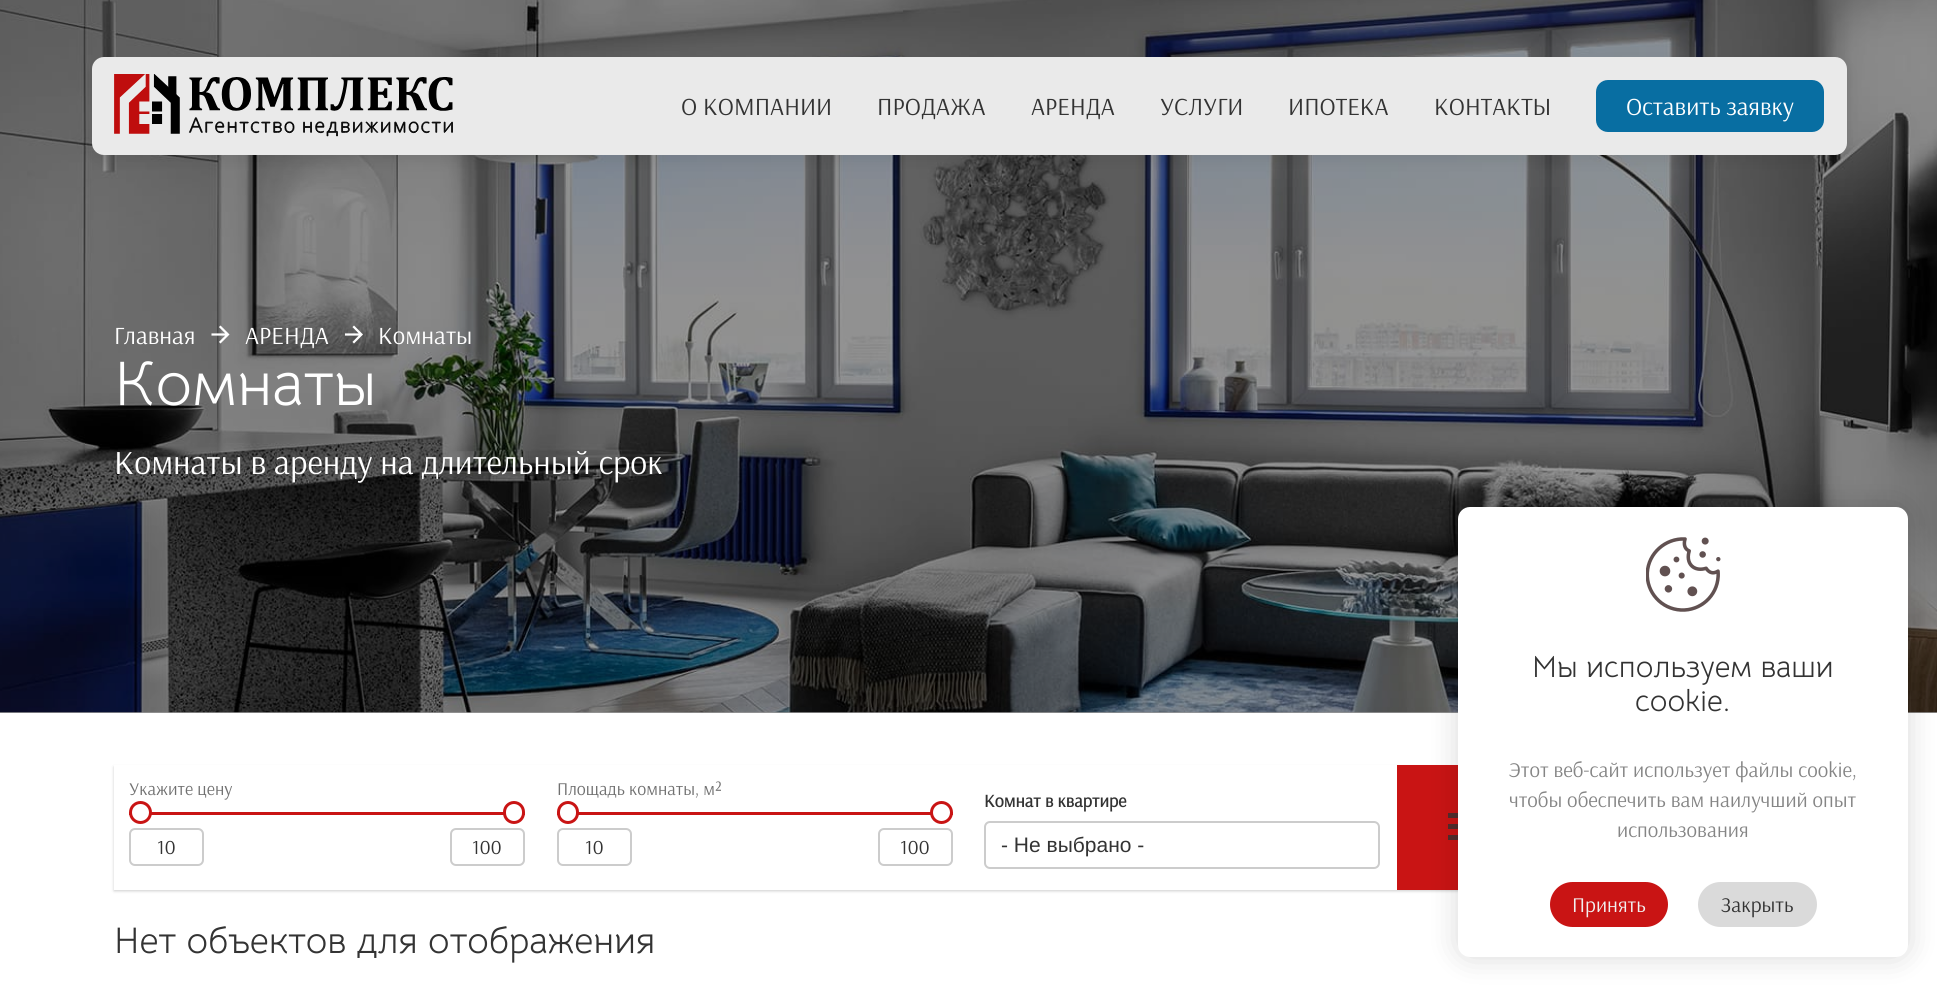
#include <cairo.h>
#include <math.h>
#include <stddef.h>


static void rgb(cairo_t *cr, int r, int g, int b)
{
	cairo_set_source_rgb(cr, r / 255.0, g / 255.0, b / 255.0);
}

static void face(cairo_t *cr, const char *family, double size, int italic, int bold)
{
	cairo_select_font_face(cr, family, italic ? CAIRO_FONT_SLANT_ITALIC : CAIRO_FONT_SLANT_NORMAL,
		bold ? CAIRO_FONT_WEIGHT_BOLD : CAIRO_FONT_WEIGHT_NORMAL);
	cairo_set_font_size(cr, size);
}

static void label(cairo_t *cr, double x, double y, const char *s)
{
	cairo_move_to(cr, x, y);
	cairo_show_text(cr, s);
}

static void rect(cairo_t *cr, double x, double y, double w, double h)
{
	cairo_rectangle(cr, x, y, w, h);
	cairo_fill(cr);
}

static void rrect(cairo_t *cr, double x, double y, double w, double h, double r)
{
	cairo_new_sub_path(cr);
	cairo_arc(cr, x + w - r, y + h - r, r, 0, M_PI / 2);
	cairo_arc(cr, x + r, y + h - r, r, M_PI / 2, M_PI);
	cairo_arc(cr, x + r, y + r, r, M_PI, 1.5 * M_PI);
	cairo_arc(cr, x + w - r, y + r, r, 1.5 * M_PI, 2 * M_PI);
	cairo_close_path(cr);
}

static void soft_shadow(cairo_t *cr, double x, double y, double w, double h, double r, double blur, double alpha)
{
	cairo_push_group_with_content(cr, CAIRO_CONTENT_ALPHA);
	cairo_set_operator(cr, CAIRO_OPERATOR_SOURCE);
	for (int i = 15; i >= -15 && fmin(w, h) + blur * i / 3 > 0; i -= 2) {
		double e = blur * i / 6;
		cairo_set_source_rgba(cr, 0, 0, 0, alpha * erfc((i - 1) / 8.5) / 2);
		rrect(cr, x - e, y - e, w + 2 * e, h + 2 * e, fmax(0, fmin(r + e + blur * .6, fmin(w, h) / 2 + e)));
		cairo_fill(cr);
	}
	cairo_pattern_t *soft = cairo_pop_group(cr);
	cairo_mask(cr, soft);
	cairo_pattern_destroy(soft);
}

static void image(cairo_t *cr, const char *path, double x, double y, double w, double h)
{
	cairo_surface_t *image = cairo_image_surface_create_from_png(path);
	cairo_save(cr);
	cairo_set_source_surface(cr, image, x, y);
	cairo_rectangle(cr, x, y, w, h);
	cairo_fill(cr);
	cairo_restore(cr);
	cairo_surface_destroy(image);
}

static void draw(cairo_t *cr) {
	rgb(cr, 255, 255, 255);
	cairo_paint(cr);
	rgb(cr, 153, 153, 153);
	rect(cr, 0, 712, 1937, 1);
	image(cr, "image1.png", 0, 0, 1937, 713);
	rgb(cr, 0, 0, 0);
	soft_shadow(cr, 92, 63, 1755, 98, 12, 7.5, 0.07);
	rgb(cr, 234, 234, 234);
	rrect(cr, 92, 57, 1755, 98, 12);
	cairo_fill(cr);
	image(cr, "image0.png", 114, 74, 339, 63);
	face(cr, "Arsenal", 24.75, 0, 0);
	rgb(cr, 51, 51, 51);
	label(cr, 681, 115, "О КОМПАНИИ");
	label(cr, 877, 115, "ПРОДАЖА");
	label(cr, 1031, 115, "АРЕНДА");
	label(cr, 1160, 115, "УСЛУГИ");
	label(cr, 1288, 115, "ИПОТЕКА");
	label(cr, 1434, 115, "КОНТАКТЫ");
	rgb(cr, 8, 110, 162);
	rrect(cr, 1596, 80, 228, 52, 12);
	cairo_fill(cr);
	rgb(cr, 255, 255, 255);
	label(cr, 1626, 115, "Оставить заявку");
	label(cr, 114, 344, "Главная");
	image(cr, "image2.png", 211, 325, 19, 19);
	label(cr, 245, 344, "АРЕНДА");
	image(cr, "image3.png", 345, 325, 18, 19);
	label(cr, 378, 344, "Комнаты");
	face(cr, "Bellota Text", 63, 0, 0);
	label(cr, 114, 405, "Комнаты");
	face(cr, "Arsenal", 33.75, 0, 0);
	label(cr, 114, 474, "Комнаты в аренду на длительный срок");
	cairo_save(cr);
	cairo_set_fill_rule(cr, CAIRO_FILL_RULE_EVEN_ODD);
	cairo_new_path(cr);
	cairo_move_to(cr, 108, 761);
	cairo_line_to(cr, 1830, 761);
	cairo_line_to(cr, 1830, 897);
	cairo_line_to(cr, 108, 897);
	cairo_close_path(cr);
	cairo_move_to(cr, 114, 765);
	cairo_line_to(cr, 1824, 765);
	cairo_line_to(cr, 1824, 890);
	cairo_line_to(cr, 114, 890);
	cairo_close_path(cr);
	cairo_clip(cr);
	rgb(cr, 0, 0, 0);
	soft_shadow(cr, 114, 767, 1710, 124, 0, 1.5, 0.2);
	cairo_restore(cr);
	face(cr, "Arsenal", 18, 0, 0);
	rgb(cr, 112, 112, 112);
	label(cr, 129, 795, "Укажите цену");
	rgb(cr, 201, 20, 20);
	rect(cr, 129, 812, 396, 3);
	rgb(cr, 255, 255, 255);
	cairo_new_path(cr);
	cairo_arc(cr, 140.5, 812.5, 10, 0, 2 * M_PI);
	cairo_fill_preserve(cr);
	rgb(cr, 201, 20, 20);
	cairo_set_line_width(cr, 3);
	cairo_stroke(cr);
	rgb(cr, 255, 255, 255);
	rrect(cr, 504.5, 802.5, 19, 20, 9.5);
	cairo_fill_preserve(cr);
	rgb(cr, 201, 20, 20);
	cairo_stroke(cr);
	rrect(cr, 130, 829, 73, 36, 5);
	rgb(cr, 204, 204, 204);
	cairo_set_line_width(cr, 2);
	cairo_stroke(cr);
	face(cr, "Arsenal", 20, 0, 0);
	rgb(cr, 51, 51, 51);
	label(cr, 157, 854, "10");
	rrect(cr, 451, 829, 73, 36, 5);
	rgb(cr, 204, 204, 204);
	cairo_stroke(cr);
	rgb(cr, 51, 51, 51);
	label(cr, 472, 854, "100");
	face(cr, "Arsenal", 18, 0, 0);
	rgb(cr, 112, 112, 112);
	label(cr, 557, 795, "Площадь комнаты, м²");
	rgb(cr, 201, 20, 20);
	rect(cr, 557, 812, 396, 3);
	rgb(cr, 255, 255, 255);
	rrect(cr, 558.5, 802.5, 19, 20, 9.5);
	cairo_fill_preserve(cr);
	rgb(cr, 201, 20, 20);
	cairo_set_line_width(cr, 3);
	cairo_stroke(cr);
	rgb(cr, 255, 255, 255);
	cairo_arc(cr, 941.5, 812.5, 10, 0, 2 * M_PI);
	cairo_fill_preserve(cr);
	rgb(cr, 201, 20, 20);
	cairo_stroke(cr);
	rrect(cr, 558, 829, 73, 36, 5);
	rgb(cr, 204, 204, 204);
	cairo_set_line_width(cr, 2);
	cairo_stroke(cr);
	face(cr, "Arsenal", 20, 0, 0);
	rgb(cr, 51, 51, 51);
	label(cr, 585, 854, "10");
	rrect(cr, 879, 829, 73, 36, 5);
	rgb(cr, 204, 204, 204);
	cairo_stroke(cr);
	rgb(cr, 51, 51, 51);
	label(cr, 900, 854, "100");
	face(cr, "Arsenal", 18, 0, 1);
	label(cr, 984, 807, "Комнат в квартире");
	rrect(cr, 985, 822, 394, 46, 5);
	rgb(cr, 204, 204, 204);
	cairo_stroke(cr);
	face(cr, "Liberation Sans", 21, 0, 0);
	rgb(cr, 51, 51, 51);
	label(cr, 1001, 852, "- Не выбрано -");
	rgb(cr, 201, 20, 20);
	rect(cr, 1397, 765, 61, 125);
	rgb(cr, 81, 45, 45);
	cairo_new_path(cr);
	cairo_move_to(cr, 1448, 840);
	cairo_line_to(cr, 1448, 835);
	cairo_line_to(cr, 1489, 835);
	cairo_line_to(cr, 1489, 840);
	cairo_close_path(cr);
	cairo_move_to(cr, 1448, 829);
	cairo_line_to(cr, 1448, 824);
	cairo_line_to(cr, 1489, 824);
	cairo_line_to(cr, 1489, 829);
	cairo_close_path(cr);
	cairo_move_to(cr, 1448, 813);
	cairo_line_to(cr, 1489, 813);
	cairo_line_to(cr, 1489, 818);
	cairo_line_to(cr, 1448, 818);
	cairo_close_path(cr);
	cairo_fill(cr);
	face(cr, "Bellota Text", 37.1, 0, 0);
	rgb(cr, 51, 51, 51);
	label(cr, 114, 953, "Нет объектов для отображения");
	rgb(cr, 0, 0, 0);
	soft_shadow(cr, 1458, 507, 450, 450, 12, 15, 0.15);
	rgb(cr, 255, 255, 255);
	rrect(cr, 1458, 507, 450, 450, 12);
	cairo_fill(cr);
	image(cr, "image4.png", 1646, 537, 75, 75);
	face(cr, "Bellota Text", 30.4, 0, 0);
	rgb(cr, 51, 51, 51);
	label(cr, 1532, 677, "Мы используем ваши");
	label(cr, 1635, 711, "cookie.");
	face(cr, "Arsenal", 21, 0, 0);
	rgb(cr, 133, 133, 133);
	label(cr, 1509, 777, "Этот веб-сайт использует файлы cookie,");
	label(cr, 1509, 807, "чтобы обеспечить вам наилучший опыт");
	label(cr, 1617, 837, "использования");
	rgb(cr, 201, 20, 20);
	rrect(cr, 1550, 882, 118, 45, 22.5);
	cairo_fill(cr);
	rgb(cr, 241, 241, 241);
	label(cr, 1572, 912, "Принять");
	rgb(cr, 218, 218, 218);
	rrect(cr, 1698, 882, 119, 45, 22.5);
	cairo_fill(cr);
	rgb(cr, 51, 51, 51);
	label(cr, 1721, 912, "Закрыть");
}

int main(void) {
	cairo_surface_t *surface = cairo_image_surface_create(CAIRO_FORMAT_RGB24, 1937, 987);
	cairo_t *cr = cairo_create(surface);
	cairo_font_options_t *options = cairo_font_options_create();
	cairo_font_options_set_hint_metrics(options, CAIRO_HINT_METRICS_OFF);
	cairo_font_options_set_hint_style(options, CAIRO_HINT_STYLE_NONE);
	cairo_set_font_options(cr, options);
	cairo_set_miter_limit(cr, 4);
	draw(cr);
	cairo_surface_write_to_png(surface, "render.png");
	cairo_font_options_destroy(options);
	cairo_destroy(cr);
	cairo_surface_destroy(surface);
	return 0;
}
